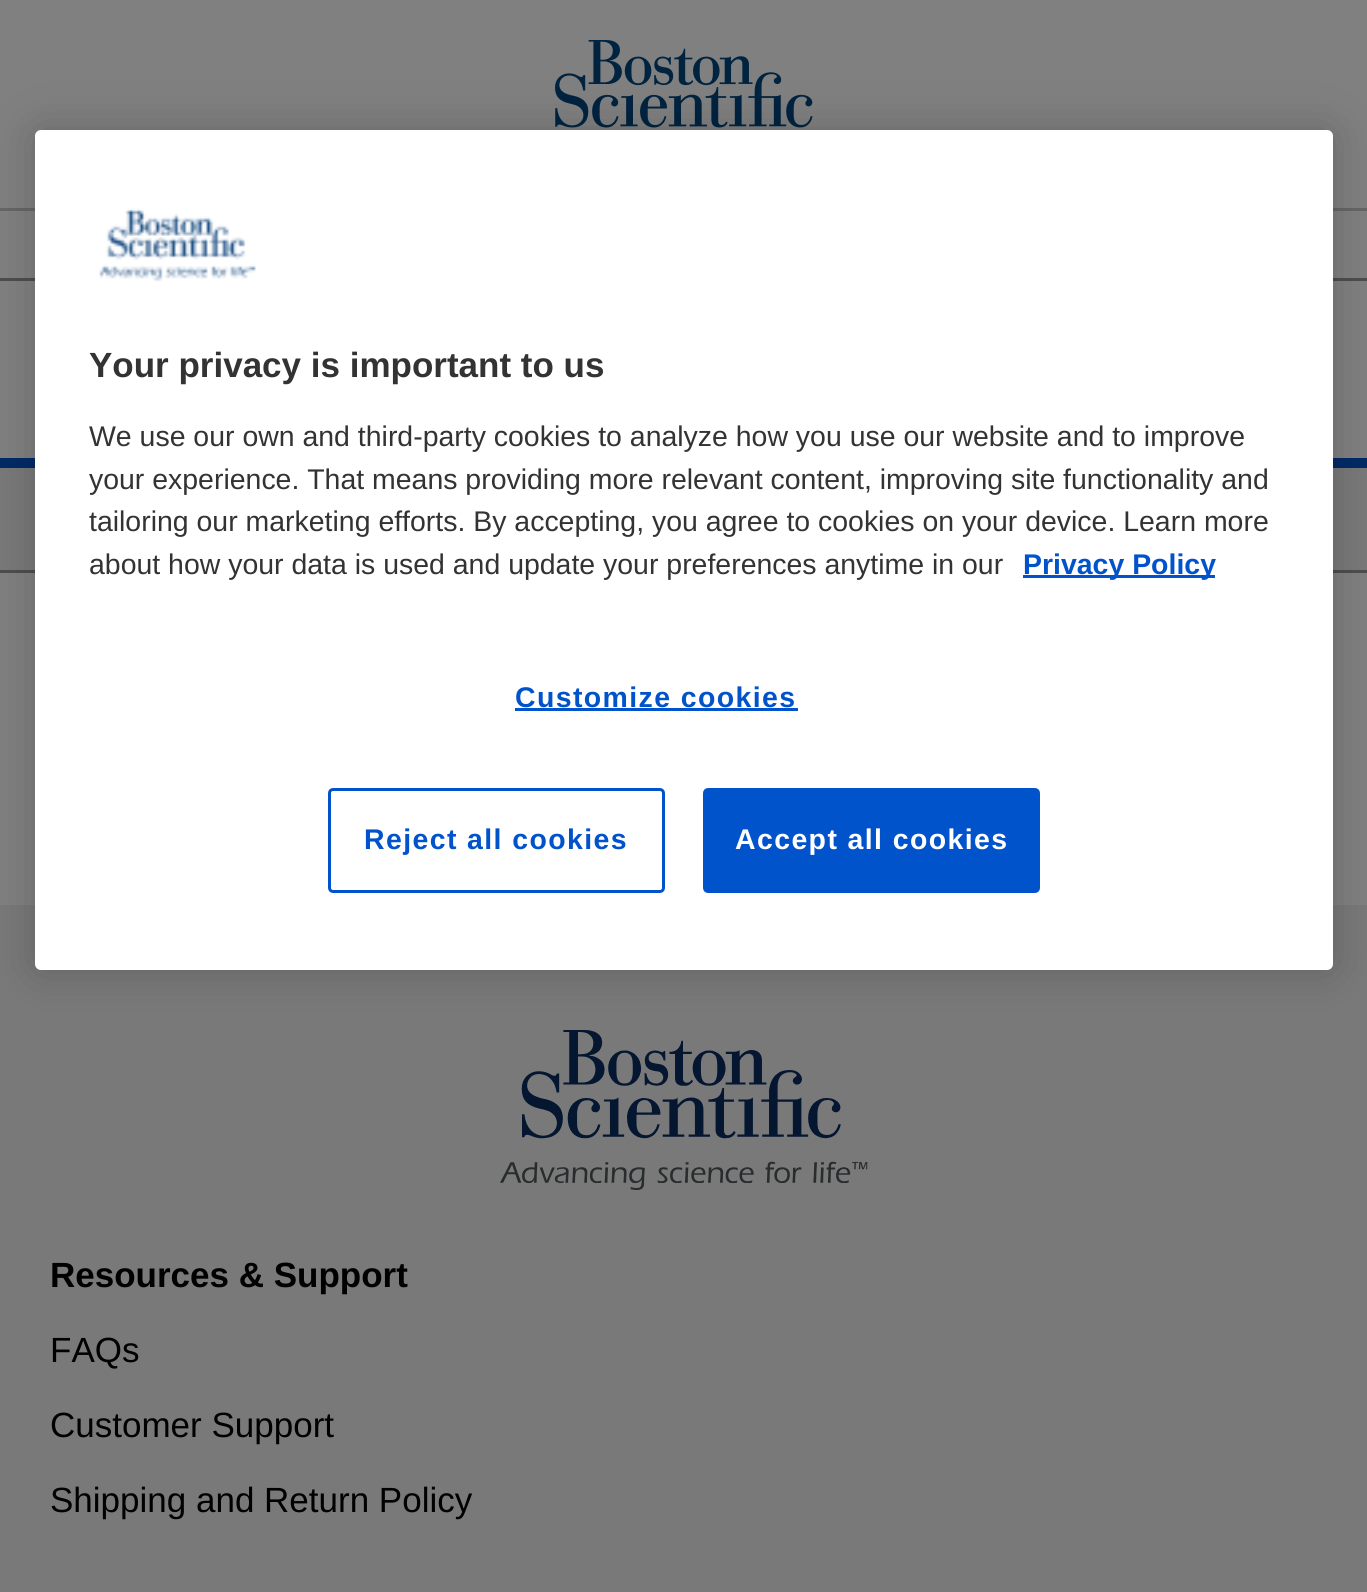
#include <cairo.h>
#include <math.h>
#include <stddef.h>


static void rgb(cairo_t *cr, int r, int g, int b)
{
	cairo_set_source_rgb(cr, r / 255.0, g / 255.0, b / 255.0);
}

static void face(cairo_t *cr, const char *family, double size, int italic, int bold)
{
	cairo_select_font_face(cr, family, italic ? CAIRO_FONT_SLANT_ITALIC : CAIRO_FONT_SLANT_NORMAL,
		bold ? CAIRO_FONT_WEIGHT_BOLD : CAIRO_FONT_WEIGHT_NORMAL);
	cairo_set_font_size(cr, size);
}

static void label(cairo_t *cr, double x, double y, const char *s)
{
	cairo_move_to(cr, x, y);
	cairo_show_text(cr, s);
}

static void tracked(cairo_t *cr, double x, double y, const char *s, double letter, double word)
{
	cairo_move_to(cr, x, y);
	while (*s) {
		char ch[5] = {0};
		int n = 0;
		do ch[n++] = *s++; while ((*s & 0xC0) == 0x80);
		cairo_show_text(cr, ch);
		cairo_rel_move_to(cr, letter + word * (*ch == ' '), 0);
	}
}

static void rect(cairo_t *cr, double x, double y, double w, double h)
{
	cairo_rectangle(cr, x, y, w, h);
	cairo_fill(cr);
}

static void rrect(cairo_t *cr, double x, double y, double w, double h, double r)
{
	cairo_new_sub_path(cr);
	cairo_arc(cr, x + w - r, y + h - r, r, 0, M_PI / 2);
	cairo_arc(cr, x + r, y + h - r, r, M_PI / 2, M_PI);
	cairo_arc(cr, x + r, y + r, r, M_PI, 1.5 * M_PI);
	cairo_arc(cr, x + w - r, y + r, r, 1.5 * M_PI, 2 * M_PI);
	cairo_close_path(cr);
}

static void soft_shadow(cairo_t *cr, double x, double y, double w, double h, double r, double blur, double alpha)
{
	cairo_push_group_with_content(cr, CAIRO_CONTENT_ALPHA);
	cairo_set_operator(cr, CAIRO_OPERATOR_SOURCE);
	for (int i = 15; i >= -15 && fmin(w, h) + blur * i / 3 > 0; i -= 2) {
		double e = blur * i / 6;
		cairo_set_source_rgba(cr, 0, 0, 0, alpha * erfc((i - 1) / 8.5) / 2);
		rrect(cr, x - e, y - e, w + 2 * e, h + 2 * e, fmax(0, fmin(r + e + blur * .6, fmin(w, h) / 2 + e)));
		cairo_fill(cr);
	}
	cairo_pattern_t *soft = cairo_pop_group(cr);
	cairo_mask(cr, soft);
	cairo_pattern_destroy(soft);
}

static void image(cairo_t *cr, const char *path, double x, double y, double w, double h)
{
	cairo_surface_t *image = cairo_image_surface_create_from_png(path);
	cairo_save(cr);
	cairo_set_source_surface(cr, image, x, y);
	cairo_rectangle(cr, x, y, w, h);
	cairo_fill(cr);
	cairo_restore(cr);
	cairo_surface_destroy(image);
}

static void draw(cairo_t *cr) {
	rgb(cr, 128, 128, 128);
	cairo_paint(cr);
	rgb(cr, 102, 102, 102);
	rect(cr, 0, 208, 1367, 3);
	image(cr, "image0.png", 555, 40, 258, 88);
	rgb(cr, 77, 77, 77);
	rect(cr, 0, 278, 1367, 3);
	rgb(cr, 1, 42, 102);
	rect(cr, 0, 458, 1367, 10);
	rgb(cr, 121, 121, 121);
	rect(cr, 0, 468, 1367, 102);
	rgb(cr, 77, 77, 77);
	rect(cr, 0, 570, 1367, 3);
	rgb(cr, 121, 121, 121);
	rect(cr, 0, 905, 1367, 687);
	image(cr, "image2.png", 500, 1030, 368, 160);
	rgb(cr, 0, 0, 0);
	soft_shadow(cr, 35, 130, 1298, 840, 6, 22.5, 0.2);
	rgb(cr, 255, 255, 255);
	rrect(cr, 35, 130, 1298, 840, 6);
	cairo_fill(cr);
	image(cr, "image1.png", 99, 208, 157, 74);
	face(cr, "Liberation Sans", 35, 0, 1);
	rgb(cr, 51, 51, 51);
	label(cr, 89, 377, "Your privacy is important to us");
	face(cr, "Liberation Sans", 28.45, 0, 0);
	label(cr, 89, 446, "We use our own and third-party cookies to analyze how you use our website and to improve");
	label(cr, 89, 489, "your experience. That means providing more relevant content, improving site functionality and");
	label(cr, 89, 531, "tailoring our marketing efforts. By accepting, you agree to cookies on your device. Learn more");
	label(cr, 89, 574, "about how your data is used and update your preferences anytime in our");
	rgb(cr, 1, 83, 204);
	rect(cr, 1023, 575, 192, 3);
	face(cr, "Liberation Sans", 28.45, 0, 1);
	label(cr, 1023, 574, "Privacy Policy");
	tracked(cr, 515, 707, "Customize cookies", 1.4, 0);
	rect(cr, 515, 708, 283, 3);
	rrect(cr, 329.5, 789.5, 334, 102, 3.5);
	cairo_set_line_width(cr, 3);
	cairo_stroke(cr);
	tracked(cr, 364, 849, "Reject all cookies", 1.4, 0);
	rrect(cr, 704.5, 789.5, 334, 102, 3.5);
	cairo_fill_preserve(cr);
	cairo_stroke(cr);
	rgb(cr, 255, 255, 255);
	tracked(cr, 735, 849, "Accept all cookies", 1.4, 0);
	face(cr, "Liberation Sans", 35, 0, 1);
	rgb(cr, 0, 0, 0);
	label(cr, 50, 1287, "Resources & Support");
	face(cr, "Liberation Sans", 35, 0, 0);
	label(cr, 50, 1362, "FAQs");
	label(cr, 50, 1437, "Customer Support");
	label(cr, 50, 1512, "Shipping and Return Policy");
}

int main(void) {
	cairo_surface_t *surface = cairo_image_surface_create(CAIRO_FORMAT_RGB24, 1367, 1592);
	cairo_t *cr = cairo_create(surface);
	cairo_font_options_t *options = cairo_font_options_create();
	cairo_font_options_set_hint_metrics(options, CAIRO_HINT_METRICS_OFF);
	cairo_font_options_set_hint_style(options, CAIRO_HINT_STYLE_NONE);
	cairo_set_font_options(cr, options);
	cairo_set_miter_limit(cr, 4);
	draw(cr);
	cairo_surface_write_to_png(surface, "render.png");
	cairo_font_options_destroy(options);
	cairo_destroy(cr);
	cairo_surface_destroy(surface);
	return 0;
}
